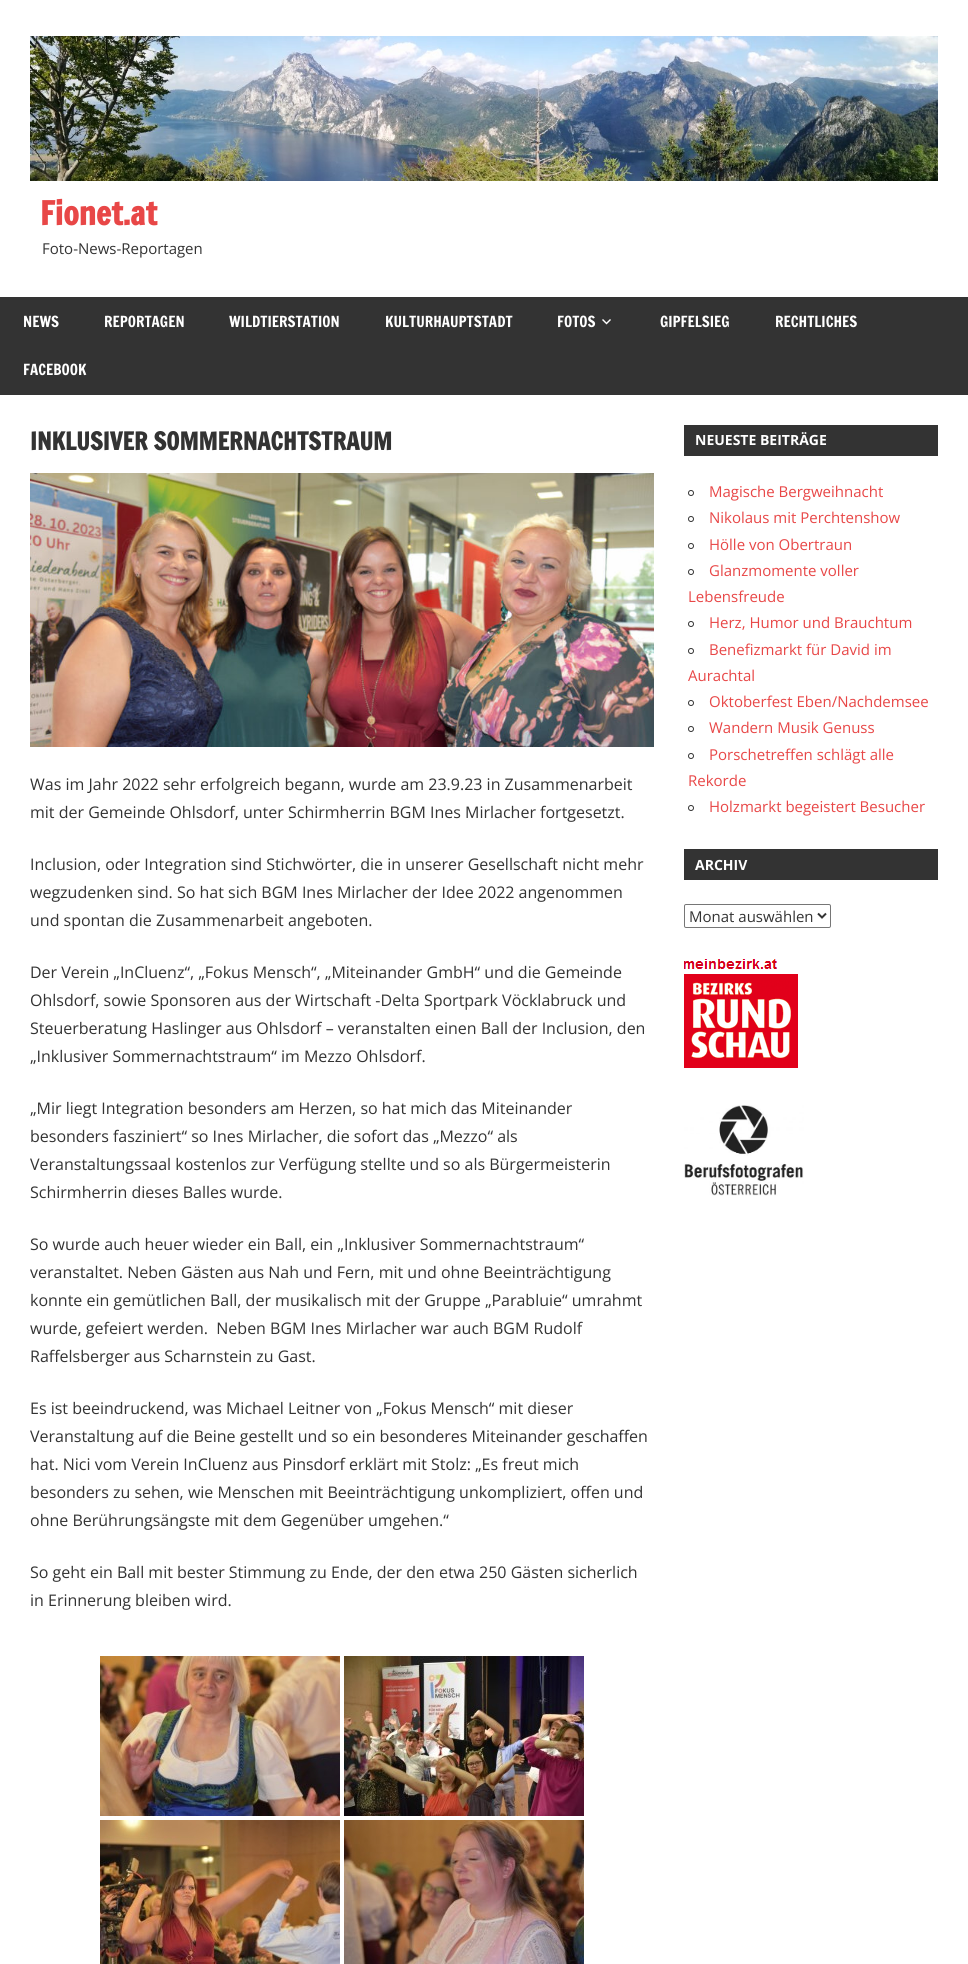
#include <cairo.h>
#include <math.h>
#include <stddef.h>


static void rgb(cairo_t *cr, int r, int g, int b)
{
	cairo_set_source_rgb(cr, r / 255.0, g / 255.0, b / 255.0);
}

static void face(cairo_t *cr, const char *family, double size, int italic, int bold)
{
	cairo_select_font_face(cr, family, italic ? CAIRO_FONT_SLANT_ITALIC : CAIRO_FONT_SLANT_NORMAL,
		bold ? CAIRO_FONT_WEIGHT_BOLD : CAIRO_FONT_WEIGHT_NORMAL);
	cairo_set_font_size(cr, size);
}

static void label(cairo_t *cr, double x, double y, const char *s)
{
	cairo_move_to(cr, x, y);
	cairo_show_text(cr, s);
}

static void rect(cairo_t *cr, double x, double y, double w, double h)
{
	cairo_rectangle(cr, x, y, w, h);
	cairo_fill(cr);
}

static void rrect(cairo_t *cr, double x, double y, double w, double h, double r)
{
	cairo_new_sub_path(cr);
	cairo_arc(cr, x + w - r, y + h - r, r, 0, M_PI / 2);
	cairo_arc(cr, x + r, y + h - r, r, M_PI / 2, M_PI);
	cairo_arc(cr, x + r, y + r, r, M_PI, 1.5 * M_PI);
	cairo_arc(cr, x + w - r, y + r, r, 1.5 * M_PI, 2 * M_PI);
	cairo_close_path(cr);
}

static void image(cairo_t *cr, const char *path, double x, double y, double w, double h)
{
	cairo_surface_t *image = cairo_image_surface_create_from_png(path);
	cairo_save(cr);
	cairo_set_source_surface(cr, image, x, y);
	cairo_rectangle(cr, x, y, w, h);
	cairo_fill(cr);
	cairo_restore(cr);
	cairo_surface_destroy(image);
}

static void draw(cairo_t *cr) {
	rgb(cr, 255, 255, 255);
	cairo_paint(cr);
	image(cr, "image0.png", 30, 36, 908, 145);
	face(cr, "Francois One", 32, 0, 1);
	rgb(cr, 232, 71, 71);
	label(cr, 40, 225, "Fionet.at");
	face(cr, "Open Sans", 15, 0, 0);
	rgb(cr, 51, 51, 51);
	label(cr, 42, 254, "Foto-News-Reportagen");
	rect(cr, 0, 297, 968, 98);
	face(cr, "Francois One", 15, 0, 0);
	rgb(cr, 255, 255, 255);
	label(cr, 23, 327, "NEWS");
	label(cr, 104, 327, "REPORTAGEN");
	label(cr, 229, 327, "WILDTIERSTATION");
	label(cr, 385, 327, "KULTURHAUPTSTADT");
	label(cr, 557, 327, "FOTOS");
	image(cr, "image1.png", 602, 319, 9, 6);
	label(cr, 660, 327, "GIPFELSIEG");
	label(cr, 775, 327, "RECHTLICHES");
	label(cr, 23, 375, "FACEBOOK");
	face(cr, "Francois One", 24, 0, 1);
	rgb(cr, 51, 51, 51);
	label(cr, 30, 450, "INKLUSIVER SOMMERNACHTSTRAUM");
	image(cr, "image2.png", 30, 473, 624, 274);
	face(cr, "Open Sans", 16, 0, 0);
	label(cr, 30, 790, "Was im Jahr 2022 sehr erfolgreich begann, wurde am 23.9.23 in Zusammenarbeit");
	label(cr, 30, 818, "mit der Gemeinde Ohlsdorf, unter Schirmherrin BGM Ines Mirlacher fortgesetzt.");
	label(cr, 30, 870, "Inclusion, oder Integration sind Stichwörter, die in unserer Gesellschaft nicht mehr");
	label(cr, 30, 898, "wegzudenken sind. So hat sich BGM Ines Mirlacher der Idee 2022 angenommen");
	label(cr, 30, 926, "und spontan die Zusammenarbeit angeboten.");
	label(cr, 30, 978, "Der Verein „InCluenz“, „Fokus Mensch“, „Miteinander GmbH“ und die Gemeinde");
	label(cr, 30, 1006, "Ohlsdorf, sowie Sponsoren aus der Wirtschaft -Delta Sportpark Vöcklabruck und");
	label(cr, 30, 1034, "Steuerberatung Haslinger aus Ohlsdorf – veranstalten einen Ball der Inclusion, den");
	label(cr, 30, 1062, "„Inklusiver Sommernachtstraum“ im Mezzo Ohlsdorf.");
	label(cr, 30, 1114, "„Mir liegt Integration besonders am Herzen, so hat mich das Miteinander");
	label(cr, 30, 1142, "besonders fasziniert“ so Ines Mirlacher, die sofort das „Mezzo“ als");
	label(cr, 30, 1170, "Veranstaltungssaal kostenlos zur Verfügung stellte und so als Bürgermeisterin");
	label(cr, 30, 1198, "Schirmherrin dieses Balles wurde.");
	label(cr, 30, 1250, "So wurde auch heuer wieder ein Ball, ein „Inklusiver Sommernachtstraum“");
	label(cr, 30, 1278, "veranstaltet. Neben Gästen aus Nah und Fern, mit und ohne Beeinträchtigung");
	label(cr, 30, 1306, "konnte ein gemütlichen Ball, der musikalisch mit der Gruppe „Parabluie“ umrahmt");
	label(cr, 30, 1334, "wurde, gefeiert werden.  Neben BGM Ines Mirlacher war auch BGM Rudolf");
	label(cr, 30, 1362, "Raffelsberger aus Scharnstein zu Gast.");
	label(cr, 30, 1414, "Es ist beeindruckend, was Michael Leitner von „Fokus Mensch“ mit dieser");
	label(cr, 30, 1442, "Veranstaltung auf die Beine gestellt und so ein besonderes Miteinander geschaffen");
	label(cr, 30, 1470, "hat. Nici vom Verein InCluenz aus Pinsdorf erklärt mit Stolz: „Es freut mich");
	label(cr, 30, 1498, "besonders zu sehen, wie Menschen mit Beeinträchtigung unkompliziert, offen und");
	label(cr, 30, 1526, "ohne Berührungsängste mit dem Gegenüber umgehen.“");
	label(cr, 30, 1578, "So geht ein Ball mit bester Stimmung zu Ende, der den etwa 250 Gästen sicherlich");
	label(cr, 30, 1606, "in Erinnerung bleiben wird.");
	image(cr, "image3.png", 100, 1656, 240, 160);
	image(cr, "image4.png", 344, 1656, 240, 160);
	image(cr, "image5.png", 100, 1820, 240, 144);
	image(cr, "image6.png", 344, 1820, 240, 144);
	rect(cr, 684, 425, 254, 31);
	face(cr, "Open Sans", 14, 0, 1);
	rgb(cr, 255, 255, 255);
	label(cr, 695, 445, "NEUESTE BEITRÄGE");
	cairo_new_path(cr);
	cairo_arc(cr, 691, 493, 2.5, 0, 2 * M_PI);
	rgb(cr, 51, 51, 51);
	cairo_set_line_width(cr, 1);
	cairo_stroke(cr);
	face(cr, "Open Sans", 15, 0, 0);
	rgb(cr, 232, 71, 71);
	label(cr, 709, 497, "Magische Bergweihnacht");
	cairo_new_path(cr);
	cairo_arc(cr, 691, 519, 2.5, 0, 2 * M_PI);
	rgb(cr, 51, 51, 51);
	cairo_stroke(cr);
	rgb(cr, 232, 71, 71);
	label(cr, 709, 523, "Nikolaus mit Perchtenshow");
	cairo_new_path(cr);
	cairo_arc(cr, 691, 546, 2.5, 0, 2 * M_PI);
	rgb(cr, 51, 51, 51);
	cairo_stroke(cr);
	rgb(cr, 232, 71, 71);
	label(cr, 709, 550, "Hölle von Obertraun");
	cairo_new_path(cr);
	cairo_arc(cr, 691, 572, 2.5, 0, 2 * M_PI);
	rgb(cr, 51, 51, 51);
	cairo_stroke(cr);
	rgb(cr, 232, 71, 71);
	label(cr, 709, 576, "Glanzmomente voller");
	label(cr, 688, 602, "Lebensfreude");
	cairo_new_path(cr);
	cairo_arc(cr, 691, 624, 2.5, 0, 2 * M_PI);
	rgb(cr, 51, 51, 51);
	cairo_stroke(cr);
	rgb(cr, 232, 71, 71);
	label(cr, 709, 628, "Herz, Humor und Brauchtum");
	cairo_new_path(cr);
	cairo_arc(cr, 691, 651, 2.5, 0, 2 * M_PI);
	rgb(cr, 51, 51, 51);
	cairo_stroke(cr);
	rgb(cr, 232, 71, 71);
	label(cr, 709, 655, "Benefizmarkt für David im");
	label(cr, 688, 681, "Aurachtal");
	cairo_new_path(cr);
	cairo_arc(cr, 691, 703, 2.5, 0, 2 * M_PI);
	rgb(cr, 51, 51, 51);
	cairo_stroke(cr);
	rgb(cr, 232, 71, 71);
	label(cr, 709, 707, "Oktoberfest Eben/Nachdemsee");
	cairo_new_path(cr);
	cairo_arc(cr, 691, 729, 2.5, 0, 2 * M_PI);
	rgb(cr, 51, 51, 51);
	cairo_stroke(cr);
	rgb(cr, 232, 71, 71);
	label(cr, 709, 733, "Wandern Musik Genuss");
	cairo_new_path(cr);
	cairo_arc(cr, 691, 756, 2.5, 0, 2 * M_PI);
	rgb(cr, 51, 51, 51);
	cairo_stroke(cr);
	rgb(cr, 232, 71, 71);
	label(cr, 709, 760, "Porschetreffen schlägt alle");
	label(cr, 688, 786, "Rekorde");
	cairo_new_path(cr);
	cairo_arc(cr, 691, 808, 2.5, 0, 2 * M_PI);
	rgb(cr, 51, 51, 51);
	cairo_stroke(cr);
	rgb(cr, 232, 71, 71);
	label(cr, 709, 812, "Holzmarkt begeistert Besucher");
	rgb(cr, 51, 51, 51);
	rect(cr, 684, 849, 254, 31);
	face(cr, "Open Sans", 14, 0, 1);
	rgb(cr, 255, 255, 255);
	label(cr, 695, 870, "ARCHIV");
	rrect(cr, 684.5, 904.5, 146, 23, 1.5);
	rgb(cr, 118, 118, 118);
	cairo_stroke(cr);
	cairo_new_path(cr);
	cairo_move_to(cr, 818, 913.5);
	cairo_line_to(cr, 822, 917.5);
	cairo_line_to(cr, 826, 913.5);
	rgb(cr, 51, 51, 51);
	cairo_set_line_width(cr, 2);
	cairo_stroke(cr);
	face(cr, "Open Sans", 15, 0, 0);
	label(cr, 689, 922, "Monat auswählen");
	image(cr, "image7.png", 684, 959, 114, 109);
	image(cr, "image8.png", 684, 1105, 120, 91);
}

int main(void) {
	cairo_surface_t *surface = cairo_image_surface_create(CAIRO_FORMAT_RGB24, 968, 1964);
	cairo_t *cr = cairo_create(surface);
	cairo_font_options_t *options = cairo_font_options_create();
	cairo_font_options_set_hint_metrics(options, CAIRO_HINT_METRICS_OFF);
	cairo_font_options_set_hint_style(options, CAIRO_HINT_STYLE_NONE);
	cairo_set_font_options(cr, options);
	cairo_set_miter_limit(cr, 4);
	draw(cr);
	cairo_surface_write_to_png(surface, "render.png");
	cairo_font_options_destroy(options);
	cairo_destroy(cr);
	cairo_surface_destroy(surface);
	return 0;
}
